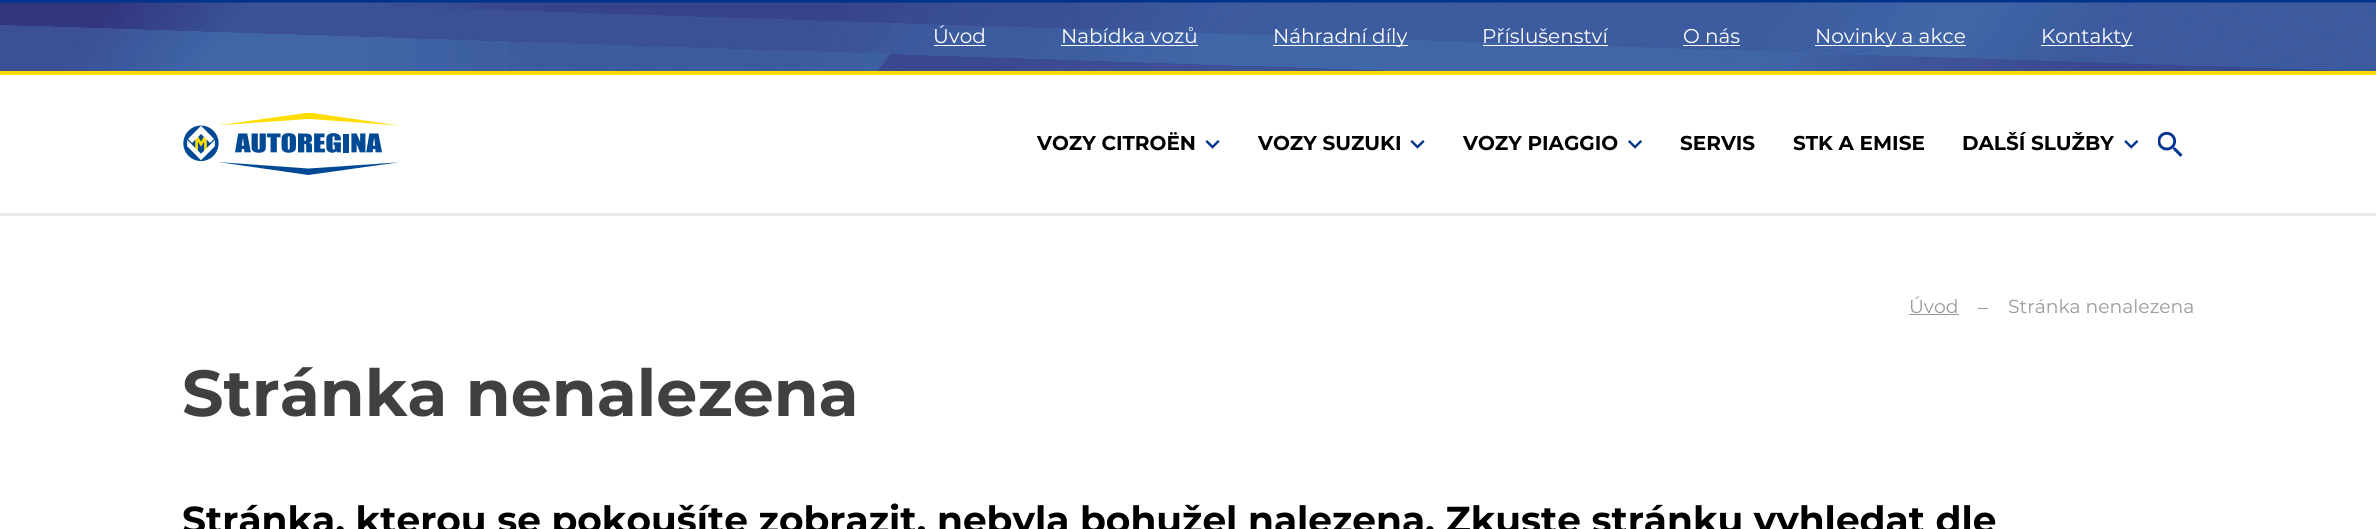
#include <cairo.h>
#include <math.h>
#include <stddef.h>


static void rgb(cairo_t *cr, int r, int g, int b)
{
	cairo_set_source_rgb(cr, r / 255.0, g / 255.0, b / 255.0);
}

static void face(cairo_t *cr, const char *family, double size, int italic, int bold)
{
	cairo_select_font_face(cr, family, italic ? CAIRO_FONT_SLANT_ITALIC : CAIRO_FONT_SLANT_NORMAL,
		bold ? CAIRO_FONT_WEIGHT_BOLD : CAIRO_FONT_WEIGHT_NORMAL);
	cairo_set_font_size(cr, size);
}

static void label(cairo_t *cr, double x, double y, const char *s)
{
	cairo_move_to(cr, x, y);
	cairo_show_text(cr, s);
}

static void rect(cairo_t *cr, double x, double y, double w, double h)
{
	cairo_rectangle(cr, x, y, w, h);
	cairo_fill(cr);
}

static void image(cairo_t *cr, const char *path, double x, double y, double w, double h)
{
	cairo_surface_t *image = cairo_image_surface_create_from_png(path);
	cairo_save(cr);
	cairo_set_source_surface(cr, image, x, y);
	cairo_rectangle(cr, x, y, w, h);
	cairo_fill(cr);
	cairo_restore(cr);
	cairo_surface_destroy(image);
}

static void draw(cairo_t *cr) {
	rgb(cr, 255, 255, 255);
	cairo_paint(cr);
	rgb(cr, 236, 236, 236);
	rect(cr, 0, 213, 2376, 3);
	rgb(cr, 0, 51, 141);
	rect(cr, 0, 0, 2376, 3);
	image(cr, "image0.png", 0, 2, 2376, 73);
	face(cr, "Montserrat", 20, 0, 0);
	rgb(cr, 255, 255, 255);
	label(cr, 933, 43, "Úvod");
	rect(cr, 934, 45, 52, 1);
	label(cr, 1061, 43, "Nabídka vozů");
	rect(cr, 1061, 45, 137, 1);
	rect(cr, 1273, 45, 135, 1);
	label(cr, 1273, 43, "Náhradní díly");
	label(cr, 1482, 43, "Příslušenství");
	rect(cr, 1483, 45, 125, 1);
	label(cr, 1683, 43, "O nás");
	rect(cr, 1683, 45, 57, 1);
	rect(cr, 1815, 45, 151, 1);
	label(cr, 1815, 43, "Novinky a akce");
	rect(cr, 2041, 45, 92, 1);
	label(cr, 2041, 43, "Kontakty");
	image(cr, "image1.png", 183, 113, 216, 62);
	face(cr, "Montserrat", 20, 0, 1);
	rgb(cr, 0, 0, 0);
	label(cr, 1037, 150, "VOZY CITROËN");
	image(cr, "image2.png", 1205, 140, 15, 9);
	label(cr, 1258, 150, "VOZY SUZUKI");
	image(cr, "image2.png", 1410, 140, 15, 9);
	label(cr, 1463, 150, "VOZY PIAGGIO");
	image(cr, "image3.png", 1628, 140, 14, 9);
	label(cr, 1680, 150, "SERVIS");
	label(cr, 1793, 150, "STK A EMISE");
	label(cr, 1962, 150, "DALŠÍ SLUŽBY");
	image(cr, "image4.png", 2124, 140, 15, 9);
	image(cr, "image5.png", 2158, 131, 25, 26);
	face(cr, "Montserrat", 18.75, 0, 0);
	rgb(cr, 153, 153, 153);
	label(cr, 1909, 313, "Úvod");
	rect(cr, 1909, 314, 50, 1);
	rect(cr, 1978, 308, 10, 1);
	label(cr, 2008, 313, "Stránka nenalezena");
	face(cr, "Montserrat", 65, 0, 1);
	rgb(cr, 64, 64, 64);
	label(cr, 182, 416, "Stránka nenalezena");
	face(cr, "Montserrat", 37.5, 0, 1);
	rgb(cr, 0, 0, 0);
	label(cr, 182, 533, "Stránka, kterou se pokoušíte zobrazit, nebyla bohužel nalezena. Zkuste stránku vyhledat dle");
}

int main(void) {
	cairo_surface_t *surface = cairo_image_surface_create(CAIRO_FORMAT_RGB24, 2376, 529);
	cairo_t *cr = cairo_create(surface);
	cairo_font_options_t *options = cairo_font_options_create();
	cairo_font_options_set_hint_metrics(options, CAIRO_HINT_METRICS_OFF);
	cairo_font_options_set_hint_style(options, CAIRO_HINT_STYLE_NONE);
	cairo_set_font_options(cr, options);
	cairo_set_miter_limit(cr, 4);
	draw(cr);
	cairo_surface_write_to_png(surface, "render.png");
	cairo_font_options_destroy(options);
	cairo_destroy(cr);
	cairo_surface_destroy(surface);
	return 0;
}
